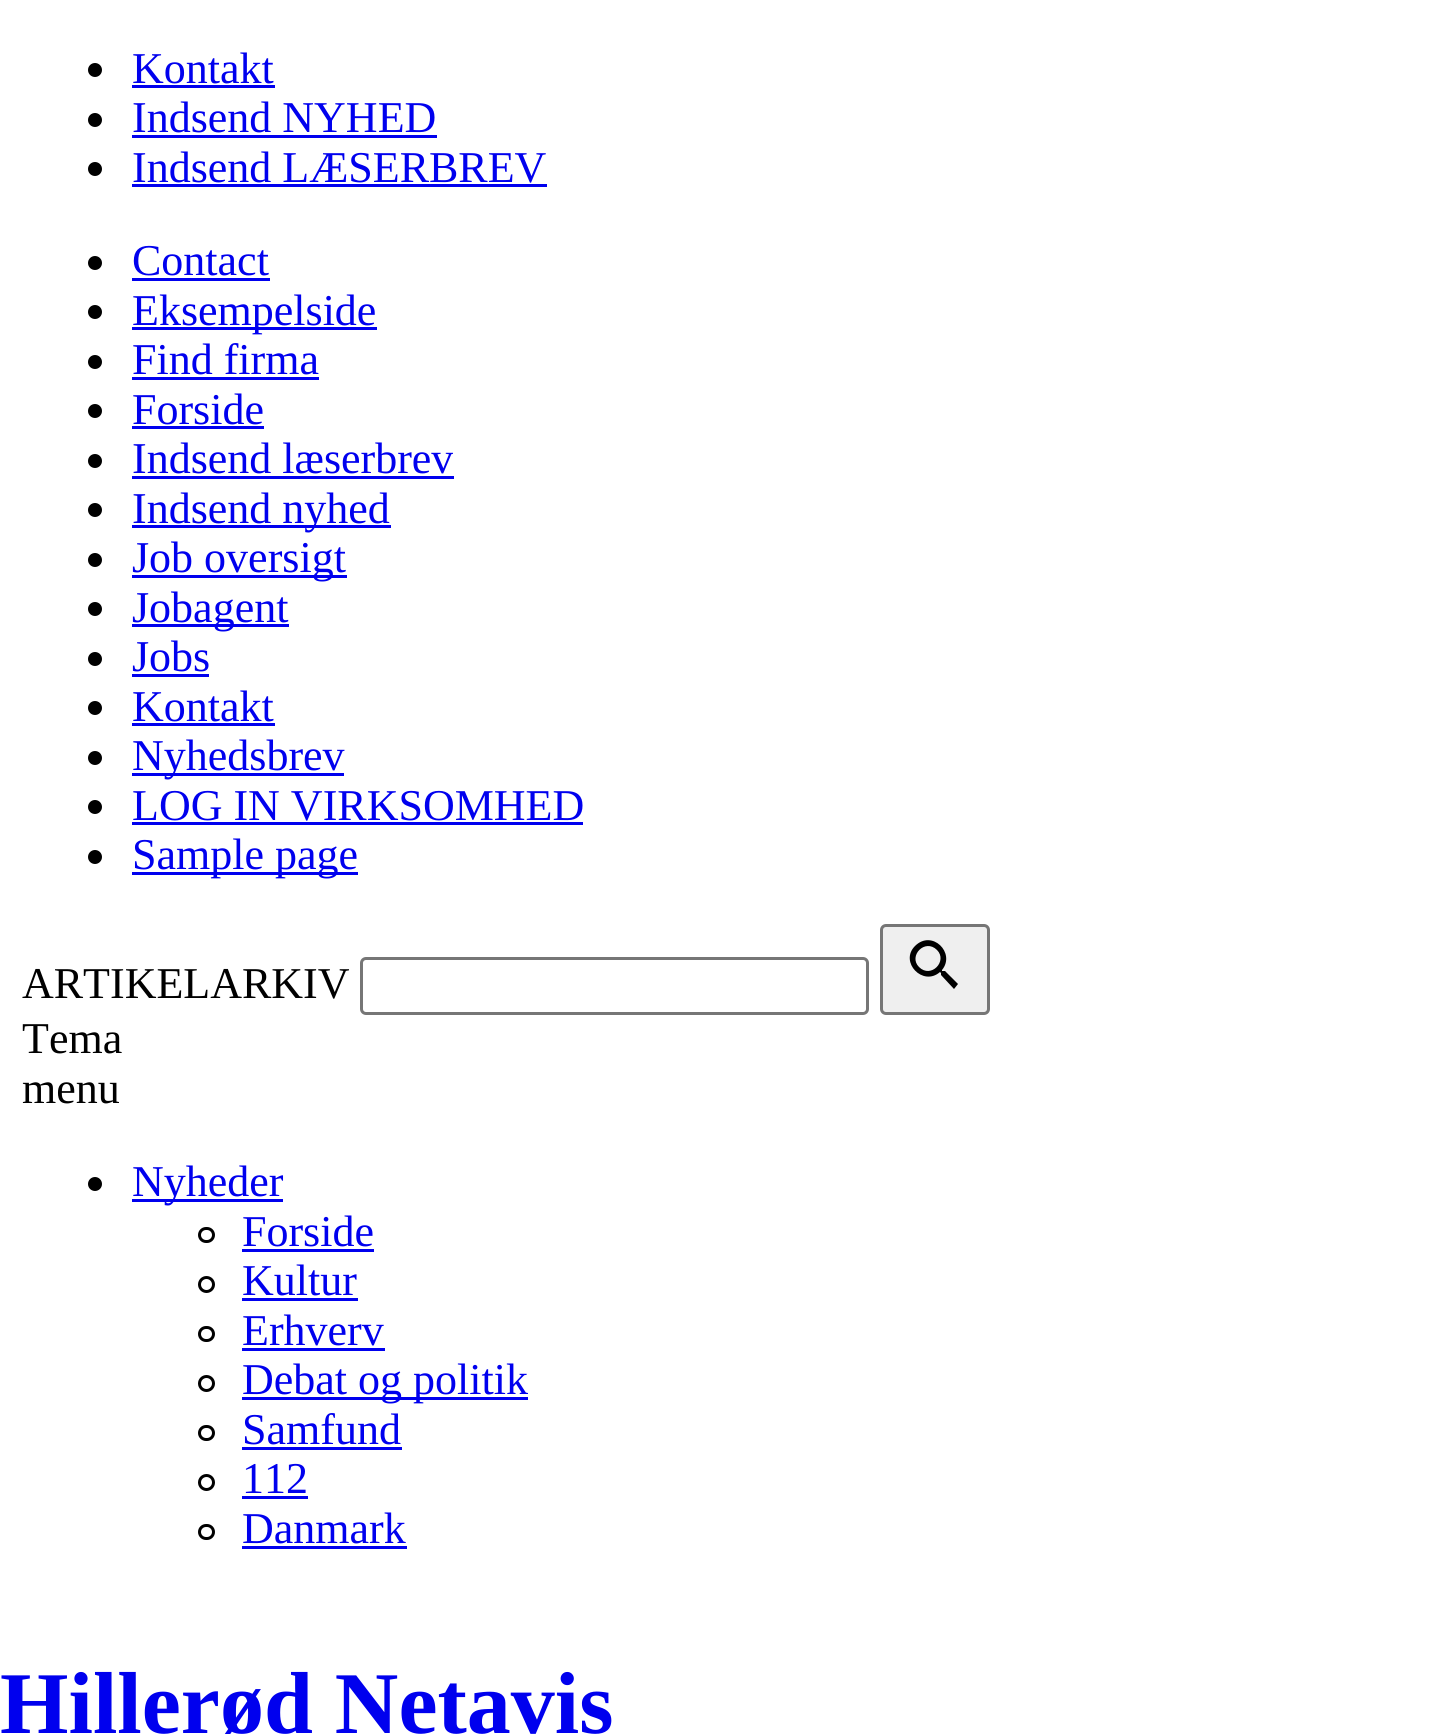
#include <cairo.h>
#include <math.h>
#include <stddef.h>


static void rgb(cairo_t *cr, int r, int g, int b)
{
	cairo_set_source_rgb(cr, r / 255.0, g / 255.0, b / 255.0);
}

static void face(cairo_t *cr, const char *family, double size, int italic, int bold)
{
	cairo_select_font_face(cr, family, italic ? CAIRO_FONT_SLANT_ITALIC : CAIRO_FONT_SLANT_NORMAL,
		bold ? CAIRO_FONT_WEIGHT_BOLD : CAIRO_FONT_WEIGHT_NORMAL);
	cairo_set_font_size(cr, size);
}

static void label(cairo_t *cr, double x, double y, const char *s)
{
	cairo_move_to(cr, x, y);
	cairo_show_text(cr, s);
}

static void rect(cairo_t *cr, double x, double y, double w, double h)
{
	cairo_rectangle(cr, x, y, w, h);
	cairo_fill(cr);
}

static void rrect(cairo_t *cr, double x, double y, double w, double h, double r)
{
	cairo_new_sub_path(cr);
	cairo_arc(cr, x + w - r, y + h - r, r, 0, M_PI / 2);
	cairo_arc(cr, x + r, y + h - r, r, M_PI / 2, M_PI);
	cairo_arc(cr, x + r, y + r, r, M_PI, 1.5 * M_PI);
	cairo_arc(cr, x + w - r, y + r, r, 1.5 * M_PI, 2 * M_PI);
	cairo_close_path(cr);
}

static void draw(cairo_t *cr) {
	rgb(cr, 255, 255, 255);
	cairo_paint(cr);
	rgb(cr, 0, 0, 0);
	cairo_arc(cr, 95, 70, 7, 0, 2 * M_PI);
	cairo_fill(cr);
	face(cr, "Liberation Serif", 44, 0, 0);
	rgb(cr, 0, 0, 238);
	label(cr, 132, 83, "Kontakt");
	rect(cr, 132, 85, 143, 3);
	rgb(cr, 0, 0, 0);
	cairo_new_path(cr);
	cairo_arc(cr, 95, 120, 7, 0, 2 * M_PI);
	cairo_fill(cr);
	rgb(cr, 0, 0, 238);
	label(cr, 132, 132, "Indsend NYHED");
	rect(cr, 132, 135, 305, 3);
	rgb(cr, 0, 0, 0);
	cairo_new_path(cr);
	cairo_arc(cr, 95, 169, 7, 0, 2 * M_PI);
	cairo_fill(cr);
	rgb(cr, 0, 0, 238);
	label(cr, 132, 182, "Indsend LÆSERBREV");
	rect(cr, 132, 184, 415, 3);
	rgb(cr, 0, 0, 0);
	cairo_new_path(cr);
	cairo_arc(cr, 95, 263, 7, 0, 2 * M_PI);
	cairo_fill(cr);
	rgb(cr, 0, 0, 238);
	label(cr, 132, 275, "Contact");
	rect(cr, 132, 278, 138, 3);
	rgb(cr, 0, 0, 0);
	cairo_new_path(cr);
	cairo_arc(cr, 95, 312, 7, 0, 2 * M_PI);
	cairo_fill(cr);
	rgb(cr, 0, 0, 238);
	rect(cr, 132, 327, 245, 3);
	label(cr, 132, 325, "Eksempelside");
	rgb(cr, 0, 0, 0);
	cairo_new_path(cr);
	cairo_arc(cr, 95, 362, 7, 0, 2 * M_PI);
	cairo_fill(cr);
	rgb(cr, 0, 0, 238);
	label(cr, 132, 374, "Find firma");
	rect(cr, 132, 377, 187, 3);
	rgb(cr, 0, 0, 0);
	cairo_new_path(cr);
	cairo_arc(cr, 95, 411, 7, 0, 2 * M_PI);
	cairo_fill(cr);
	rgb(cr, 0, 0, 238);
	label(cr, 132, 424, "Forside");
	rect(cr, 132, 426, 132, 3);
	rgb(cr, 0, 0, 0);
	cairo_new_path(cr);
	cairo_arc(cr, 95, 461, 7, 0, 2 * M_PI);
	cairo_fill(cr);
	rgb(cr, 0, 0, 238);
	label(cr, 132, 473, "Indsend læserbrev");
	rect(cr, 132, 476, 322, 3);
	rgb(cr, 0, 0, 0);
	cairo_new_path(cr);
	cairo_arc(cr, 95, 510, 7, 0, 2 * M_PI);
	cairo_fill(cr);
	rgb(cr, 0, 0, 238);
	rect(cr, 132, 525, 259, 3);
	label(cr, 132, 523, "Indsend nyhed");
	rgb(cr, 0, 0, 0);
	cairo_new_path(cr);
	cairo_arc(cr, 95, 560, 7, 0, 2 * M_PI);
	cairo_fill(cr);
	rgb(cr, 0, 0, 238);
	rect(cr, 132, 575, 215, 3);
	label(cr, 132, 572, "Job oversigt");
	rgb(cr, 0, 0, 0);
	cairo_new_path(cr);
	cairo_arc(cr, 95, 609, 7, 0, 2 * M_PI);
	cairo_fill(cr);
	rgb(cr, 0, 0, 238);
	rect(cr, 132, 624, 157, 3);
	label(cr, 132, 622, "Jobagent");
	rgb(cr, 0, 0, 0);
	cairo_new_path(cr);
	cairo_arc(cr, 95, 659, 7, 0, 2 * M_PI);
	cairo_fill(cr);
	rgb(cr, 0, 0, 238);
	label(cr, 132, 671, "Jobs");
	rect(cr, 132, 674, 77, 3);
	rgb(cr, 0, 0, 0);
	cairo_new_path(cr);
	cairo_arc(cr, 95, 708, 7, 0, 2 * M_PI);
	cairo_fill(cr);
	rgb(cr, 0, 0, 238);
	label(cr, 132, 721, "Kontakt");
	rect(cr, 132, 723, 143, 3);
	rgb(cr, 0, 0, 0);
	cairo_new_path(cr);
	cairo_arc(cr, 95, 758, 7, 0, 2 * M_PI);
	cairo_fill(cr);
	rgb(cr, 0, 0, 238);
	rect(cr, 132, 773, 212, 3);
	label(cr, 132, 770, "Nyhedsbrev");
	rgb(cr, 0, 0, 0);
	cairo_new_path(cr);
	cairo_arc(cr, 95, 807, 7, 0, 2 * M_PI);
	cairo_fill(cr);
	rgb(cr, 0, 0, 238);
	label(cr, 132, 820, "LOG IN VIRKSOMHED");
	rect(cr, 132, 822, 451, 3);
	rgb(cr, 0, 0, 0);
	cairo_new_path(cr);
	cairo_arc(cr, 95, 857, 7, 0, 2 * M_PI);
	cairo_fill(cr);
	rgb(cr, 0, 0, 238);
	rect(cr, 132, 872, 226, 3);
	label(cr, 132, 869, "Sample page");
	rgb(cr, 0, 0, 0);
	label(cr, 22, 998, "ARTIKELARKIV");
	rrect(cr, 361.5, 958.5, 506, 55, 4.5);
	rgb(cr, 118, 118, 118);
	cairo_set_line_width(cr, 3);
	cairo_stroke(cr);
	rgb(cr, 239, 239, 239);
	rrect(cr, 881.5, 925.5, 107, 88, 4.5);
	cairo_fill_preserve(cr);
	rgb(cr, 118, 118, 118);
	cairo_stroke(cr);
	rgb(cr, 0, 0, 0);
	cairo_new_path(cr);
	cairo_move_to(cr, 919, 967);
	cairo_curve_to(cr, 931, 979, 948, 961, 937, 950);
	cairo_curve_to(cr, 925, 938, 908, 956, 919, 967);
	cairo_close_path(cr);
	cairo_move_to(cr, 945, 971);
	cairo_line_to(cr, 958, 984);
	cairo_line_to(cr, 954, 989);
	cairo_line_to(cr, 941, 975);
	cairo_line_to(cr, 941, 973);
	cairo_line_to(cr, 940, 972);
	cairo_curve_to(cr, 923, 987, 899, 962, 915, 946);
	cairo_curve_to(cr, 932, 929, 956, 953, 942, 970);
	cairo_line_to(cr, 942, 971);
	cairo_close_path(cr);
	cairo_fill(cr);
	label(cr, 22, 1053, "Tema");
	label(cr, 22, 1103, "menu");
	cairo_new_path(cr);
	cairo_arc(cr, 95, 1184, 7, 0, 2 * M_PI);
	cairo_fill(cr);
	rgb(cr, 0, 0, 238);
	rect(cr, 132, 1199, 151, 3);
	label(cr, 132, 1196, "Nyheder");
	rrect(cr, 199.5, 1228.5, 14, 13, 6.5);
	rgb(cr, 0, 0, 0);
	cairo_stroke(cr);
	rgb(cr, 0, 0, 238);
	label(cr, 242, 1246, "Forside");
	rect(cr, 242, 1249, 132, 3);
	cairo_new_path(cr);
	cairo_arc(cr, 206.5, 1284.5, 7, 0, 2 * M_PI);
	rgb(cr, 0, 0, 0);
	cairo_stroke(cr);
	rgb(cr, 0, 0, 238);
	label(cr, 242, 1295, "Kultur");
	rect(cr, 242, 1298, 116, 3);
	rrect(cr, 199.5, 1327.5, 14, 13, 6.5);
	rgb(cr, 0, 0, 0);
	cairo_stroke(cr);
	rgb(cr, 0, 0, 238);
	label(cr, 242, 1345, "Erhverv");
	rect(cr, 242, 1348, 143, 3);
	cairo_new_path(cr);
	cairo_arc(cr, 206.5, 1383.5, 7, 0, 2 * M_PI);
	rgb(cr, 0, 0, 0);
	cairo_stroke(cr);
	rgb(cr, 0, 0, 238);
	rect(cr, 242, 1397, 286, 3);
	label(cr, 242, 1394, "Debat og politik");
	rrect(cr, 199.5, 1426.5, 14, 13, 6.5);
	rgb(cr, 0, 0, 0);
	cairo_stroke(cr);
	rgb(cr, 0, 0, 238);
	label(cr, 242, 1444, "Samfund");
	rect(cr, 242, 1447, 160, 3);
	cairo_new_path(cr);
	cairo_arc(cr, 206.5, 1482.5, 7, 0, 2 * M_PI);
	rgb(cr, 0, 0, 0);
	cairo_stroke(cr);
	rgb(cr, 0, 0, 238);
	label(cr, 242, 1493, "112");
	rect(cr, 242, 1496, 66, 3);
	rrect(cr, 199.5, 1525.5, 14, 13, 6.5);
	rgb(cr, 0, 0, 0);
	cairo_stroke(cr);
	rgb(cr, 0, 0, 238);
	label(cr, 242, 1543, "Danmark");
	rect(cr, 242, 1546, 165, 3);
	face(cr, "Liberation Serif", 88, 0, 1);
	label(cr, 0, 1733, "Hillerød Netavis");
}

int main(void) {
	cairo_surface_t *surface = cairo_image_surface_create(CAIRO_FORMAT_RGB24, 1446, 1734);
	cairo_t *cr = cairo_create(surface);
	cairo_font_options_t *options = cairo_font_options_create();
	cairo_font_options_set_hint_metrics(options, CAIRO_HINT_METRICS_OFF);
	cairo_font_options_set_hint_style(options, CAIRO_HINT_STYLE_NONE);
	cairo_set_font_options(cr, options);
	cairo_set_miter_limit(cr, 4);
	draw(cr);
	cairo_surface_write_to_png(surface, "render.png");
	cairo_font_options_destroy(options);
	cairo_destroy(cr);
	cairo_surface_destroy(surface);
	return 0;
}
